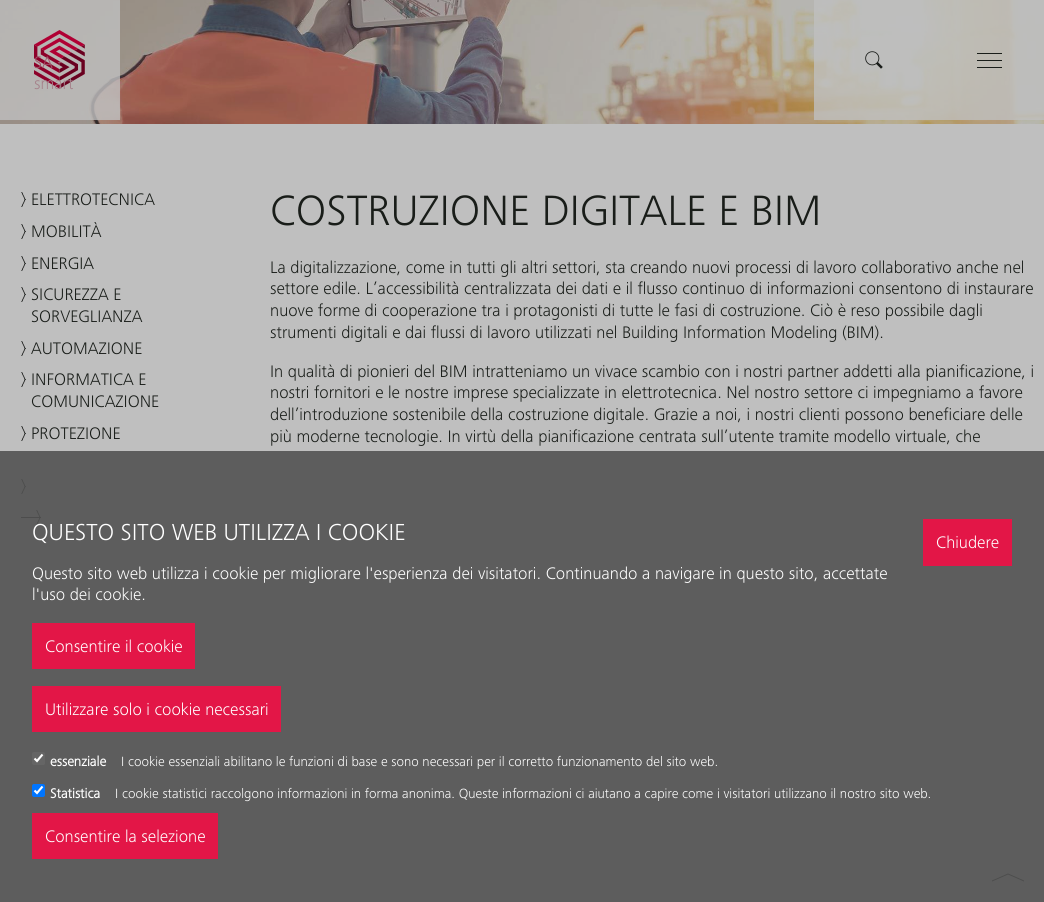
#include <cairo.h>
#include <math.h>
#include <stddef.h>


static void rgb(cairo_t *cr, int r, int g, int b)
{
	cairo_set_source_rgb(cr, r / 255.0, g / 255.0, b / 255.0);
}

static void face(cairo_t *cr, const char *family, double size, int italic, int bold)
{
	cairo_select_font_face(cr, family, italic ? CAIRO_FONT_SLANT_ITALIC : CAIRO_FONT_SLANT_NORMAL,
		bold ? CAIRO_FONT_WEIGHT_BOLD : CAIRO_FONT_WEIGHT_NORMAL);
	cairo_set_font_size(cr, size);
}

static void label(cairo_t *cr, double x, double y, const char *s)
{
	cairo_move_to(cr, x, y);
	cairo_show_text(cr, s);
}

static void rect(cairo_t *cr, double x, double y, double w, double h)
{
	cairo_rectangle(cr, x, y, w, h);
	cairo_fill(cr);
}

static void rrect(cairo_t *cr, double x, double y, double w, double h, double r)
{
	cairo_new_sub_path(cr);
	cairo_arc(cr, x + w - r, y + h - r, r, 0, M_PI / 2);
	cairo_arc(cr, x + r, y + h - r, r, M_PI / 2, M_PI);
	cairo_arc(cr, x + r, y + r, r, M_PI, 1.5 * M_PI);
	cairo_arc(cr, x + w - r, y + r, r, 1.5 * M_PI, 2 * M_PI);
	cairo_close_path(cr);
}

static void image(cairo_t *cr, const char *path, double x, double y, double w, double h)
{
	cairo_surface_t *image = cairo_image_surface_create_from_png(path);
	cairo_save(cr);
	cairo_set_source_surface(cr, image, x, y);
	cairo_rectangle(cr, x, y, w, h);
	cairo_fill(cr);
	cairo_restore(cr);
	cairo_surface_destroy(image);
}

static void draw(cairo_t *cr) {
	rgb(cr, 191, 191, 191);
	cairo_paint(cr);
	image(cr, "image0.png", 0, 0, 1044, 124);
	cairo_set_source_rgba(cr, 0.749, 0.749, 0.749, 0.8);
	rect(cr, 0, 0, 120, 120);
	image(cr, "image1.png", 34, 30, 51, 59);
	face(cr, "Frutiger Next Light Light", 17.35, 0, 0);
	rgb(cr, 160, 86, 106);
	label(cr, 34, 68, "SA -");
	rgb(cr, 165, 129, 138);
	label(cr, 34, 89, "smart");
	cairo_set_source_rgba(cr, 0.749, 0.749, 0.749, 0.8);
	rect(cr, 814, 0, 120, 120);
	image(cr, "image2.png", 865, 51, 18, 18);
	rect(cr, 934, 0, 110, 120);
	rgb(cr, 25, 29, 25);
	rect(cr, 977, 53, 25, 1);
	rect(cr, 977, 60, 25, 1);
	rect(cr, 977, 67, 25, 1);
	image(cr, "image3.png", 21, 192, 5, 15);
	label(cr, 31, 205, "ELETTROTECNICA");
	image(cr, "image3.png", 21, 224, 5, 15);
	label(cr, 31, 237, "MOBILITÀ");
	image(cr, "image3.png", 21, 256, 5, 15);
	label(cr, 31, 269, "ENERGIA");
	image(cr, "image3.png", 21, 287, 5, 15);
	label(cr, 31, 300, "SICUREZZA E");
	label(cr, 31, 322, "SORVEGLIANZA");
	image(cr, "image3.png", 21, 341, 5, 15);
	label(cr, 31, 354, "AUTOMAZIONE");
	image(cr, "image3.png", 21, 372, 5, 15);
	label(cr, 31, 385, "INFORMATICA E");
	label(cr, 31, 407, "COMUNICAZIONE");
	image(cr, "image3.png", 21, 426, 5, 15);
	label(cr, 31, 439, "PROTEZIONE");
	image(cr, "image3.png", 21, 479, 5, 15);
	image(cr, "image4.png", 21, 510, 20, 15);
	face(cr, "Frutiger Next Light Light", 44, 0, 0);
	label(cr, 270, 225, "COSTRUZIONE DIGITALE E BIM");
	face(cr, "Frutiger Next Light Light", 17.35, 0, 0);
	label(cr, 270, 273, "La digitalizzazione, come in tutti gli altri settori, sta creando nuovi processi di lavoro collaborativo anche nel");
	label(cr, 270, 294, "settore edile. L’accessibilità centralizzata dei dati e il flusso continuo di informazioni consentono di instaurare");
	label(cr, 270, 316, "nuove forme di cooperazione tra i protagonisti di tutte le fasi di costruzione. Ciò è reso possibile dagli");
	label(cr, 270, 338, "strumenti digitali e dai flussi di lavoro utilizzati nel Building Information Modeling (BIM).");
	label(cr, 270, 377, "In qualità di pionieri del BIM intratteniamo un vivace scambio con i nostri partner addetti alla pianificazione, i");
	label(cr, 270, 398, "nostri fornitori e le nostre imprese specializzate in elettrotecnica. Nel nostro settore ci impegniamo a favore");
	label(cr, 270, 420, "dell’introduzione sostenibile della costruzione digitale. Grazie a noi, i nostri clienti possono beneficiare delle");
	label(cr, 270, 442, "più moderne tecnologie. In virtù della pianificazione centrata sull’utente tramite modello virtuale, che");
	cairo_new_path(cr);
	cairo_move_to(cr, 1024, 880.5);
	cairo_line_to(cr, 1024, 881.5);
	cairo_line_to(cr, 1008, 874.5);
	cairo_line_to(cr, 1008, 873.5);
	cairo_close_path(cr);
	cairo_move_to(cr, 1008, 873.5);
	cairo_line_to(cr, 1008, 874.5);
	cairo_line_to(cr, 992, 881.5);
	cairo_line_to(cr, 992, 880.5);
	cairo_close_path(cr);
	cairo_fill(cr);
	cairo_set_source_rgba(cr, 0.325, 0.325, 0.325, 0.9);
	rect(cr, 0, 451, 1044, 451);
	face(cr, "Frutiger Next Light Light", 24, 0, 0);
	rgb(cr, 255, 255, 255);
	label(cr, 32, 540, "QUESTO SITO WEB UTILIZZA I COOKIE");
	rgb(cr, 227, 22, 71);
	rect(cr, 923, 519, 89, 47);
	face(cr, "Frutiger Next Light Light", 17.35, 0, 0);
	rgb(cr, 255, 255, 255);
	label(cr, 936, 548, "Chiudere");
	label(cr, 32, 579, "Questo sito web utilizza i cookie per migliorare l'esperienza dei visitatori. Continuando a navigare in questo sito, accettate");
	label(cr, 32, 600, "l'uso dei cookie.");
	rgb(cr, 227, 22, 71);
	rect(cr, 32, 623, 163, 46);
	rgb(cr, 255, 255, 255);
	label(cr, 45, 652, "Consentire il cookie");
	rgb(cr, 227, 22, 71);
	rect(cr, 32, 686, 249, 46);
	rgb(cr, 255, 255, 255);
	label(cr, 45, 715, "Utilizzare solo i cookie necessari");
	rgb(cr, 101, 101, 101);
	rrect(cr, 32, 752, 13, 13, 2);
	cairo_fill(cr);
	cairo_new_path(cr);
	cairo_move_to(cr, 34.5, 758.5);
	cairo_line_to(cr, 37, 761);
	cairo_line_to(cr, 42.5, 754.5);
	rgb(cr, 255, 255, 255);
	cairo_set_line_width(cr, 2.1);
	cairo_stroke(cr);
	face(cr, "Frutiger Next Light", 14, 0, 1);
	label(cr, 50, 766, "essenziale");
	face(cr, "Frutiger Next Light Light", 13.87, 0, 0);
	label(cr, 121, 766, "I cookie essenziali abilitano le funzioni di base e sono necessari per il corretto funzionamento del sito web.");
	rgb(cr, 0, 117, 255);
	rrect(cr, 32, 784, 13, 13, 2);
	cairo_fill(cr);
	cairo_new_path(cr);
	cairo_move_to(cr, 34.5, 790.5);
	cairo_line_to(cr, 37, 793);
	cairo_line_to(cr, 42.5, 786.5);
	rgb(cr, 255, 255, 255);
	cairo_stroke(cr);
	face(cr, "Frutiger Next Light", 14, 0, 1);
	label(cr, 50, 798, "Statistica");
	face(cr, "Frutiger Next Light Light", 13.87, 0, 0);
	label(cr, 115, 798, "I cookie statistici raccolgono informazioni in forma anonima. Queste informazioni ci aiutano a capire come i visitatori utilizzano il nostro sito web.");
	rgb(cr, 227, 22, 71);
	rect(cr, 32, 813, 186, 46);
	face(cr, "Frutiger Next Light Light", 17.35, 0, 0);
	rgb(cr, 255, 255, 255);
	label(cr, 45, 842, "Consentire la selezione");
}

int main(void) {
	cairo_surface_t *surface = cairo_image_surface_create(CAIRO_FORMAT_RGB24, 1044, 902);
	cairo_t *cr = cairo_create(surface);
	cairo_font_options_t *options = cairo_font_options_create();
	cairo_font_options_set_hint_metrics(options, CAIRO_HINT_METRICS_OFF);
	cairo_font_options_set_hint_style(options, CAIRO_HINT_STYLE_NONE);
	cairo_set_font_options(cr, options);
	cairo_set_miter_limit(cr, 4);
	draw(cr);
	cairo_surface_write_to_png(surface, "render.png");
	cairo_font_options_destroy(options);
	cairo_destroy(cr);
	cairo_surface_destroy(surface);
	return 0;
}
